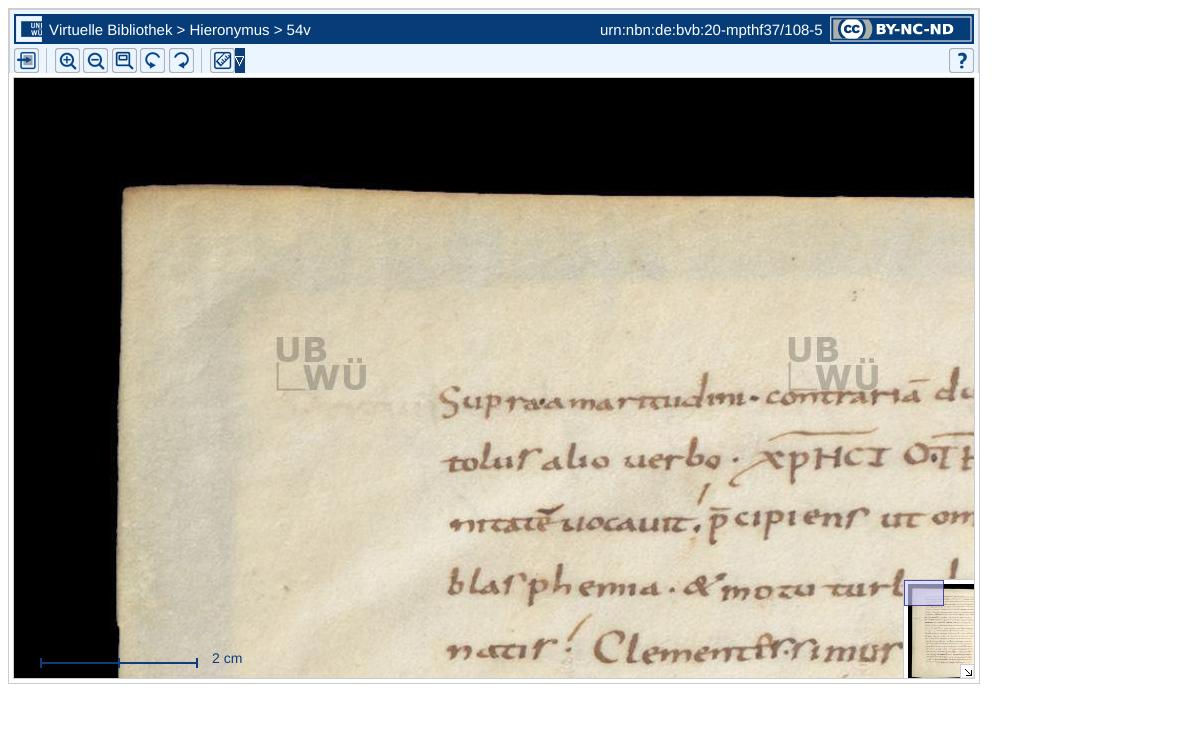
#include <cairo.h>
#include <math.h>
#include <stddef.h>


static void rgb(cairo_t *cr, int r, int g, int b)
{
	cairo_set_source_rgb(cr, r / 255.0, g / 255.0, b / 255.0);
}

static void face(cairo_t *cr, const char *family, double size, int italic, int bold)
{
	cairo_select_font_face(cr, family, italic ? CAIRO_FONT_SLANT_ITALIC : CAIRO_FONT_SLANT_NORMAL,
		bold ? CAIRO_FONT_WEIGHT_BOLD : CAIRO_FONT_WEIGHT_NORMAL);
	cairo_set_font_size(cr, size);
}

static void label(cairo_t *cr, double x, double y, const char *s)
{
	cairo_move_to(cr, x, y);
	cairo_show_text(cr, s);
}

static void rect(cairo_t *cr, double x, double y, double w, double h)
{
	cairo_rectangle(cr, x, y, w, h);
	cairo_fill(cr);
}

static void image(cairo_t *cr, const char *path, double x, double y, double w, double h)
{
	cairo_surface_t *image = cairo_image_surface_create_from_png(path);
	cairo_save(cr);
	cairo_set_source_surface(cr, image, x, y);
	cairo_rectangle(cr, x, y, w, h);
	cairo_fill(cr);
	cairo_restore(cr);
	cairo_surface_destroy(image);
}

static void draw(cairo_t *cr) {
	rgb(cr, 255, 255, 255);
	cairo_paint(cr);
	cairo_rectangle(cr, 8.5, 8.5, 971, 675);
	rgb(cr, 204, 204, 204);
	cairo_set_line_width(cr, 1);
	cairo_stroke(cr);
	rgb(cr, 235, 245, 255);
	rect(cr, 10, 10, 968, 63);
	rgb(cr, 208, 208, 208);
	rect(cr, 9, 9, 970, 1);
	rect(cr, 978, 9, 1, 64);
	rect(cr, 9, 9, 1, 64);
	rgb(cr, 6, 61, 121);
	rect(cr, 14, 14, 960, 30);
	image(cr, "image0.png", 16, 16, 26, 26);
	face(cr, "Liberation Sans", 15, 0, 0);
	rgb(cr, 255, 255, 255);
	label(cr, 49, 35, "Virtuelle Bibliothek > Hieronymus > 54v");
	label(cr, 600, 35, "urn:nbn:de:bvb:20-mpthf37/108-5");
	image(cr, "image1.png", 830, 16, 142, 26);
	image(cr, "image2.png", 14, 48, 25, 25);
	rgb(cr, 192, 192, 192);
	rect(cr, 46, 48, 1, 25);
	image(cr, "image3.png", 55, 48, 25, 25);
	image(cr, "image4.png", 83, 48, 25, 25);
	image(cr, "image5.png", 112, 48, 25, 25);
	image(cr, "image6.png", 140, 48, 25, 25);
	image(cr, "image7.png", 169, 48, 25, 25);
	rect(cr, 201, 48, 1, 25);
	image(cr, "image8.png", 210, 48, 25, 25);
	rgb(cr, 13, 62, 121);
	rect(cr, 235, 48, 10, 25);
	image(cr, "image9.png", 235, 56, 9, 10);
	image(cr, "image10.png", 949, 48, 25, 25);
	rgb(cr, 0, 0, 0);
	cairo_rectangle(cr, 13.5, 77.5, 961, 601);
	cairo_fill_preserve(cr);
	rgb(cr, 204, 204, 204);
	cairo_stroke(cr);
	image(cr, "image11.png", 110, 174, 160, 160);
	image(cr, "image12.png", 270, 174, 256, 160);
	image(cr, "image13.png", 526, 190, 256, 144);
	image(cr, "image14.png", 782, 190, 192, 144);
	image(cr, "image15.png", 110, 334, 160, 256);
	image(cr, "image16.png", 270, 334, 256, 256);
	image(cr, "image17.png", 526, 334, 256, 256);
	image(cr, "image18.png", 782, 334, 192, 256);
	image(cr, "image19.png", 110, 590, 160, 88);
	image(cr, "image20.png", 270, 590, 256, 88);
	image(cr, "image21.png", 526, 590, 256, 88);
	image(cr, "image22.png", 782, 590, 121, 88);
	face(cr, "Liberation Sans", 14, 0, 0);
	rgb(cr, 13, 62, 121);
	label(cr, 212, 663, "2 cm");
	rect(cr, 40, 658, 2, 10);
	rect(cr, 118, 658, 2, 10);
	rect(cr, 196, 658, 2, 10);
	rect(cr, 41, 662, 156, 2);
	rgb(cr, 255, 255, 255);
	rect(cr, 904, 580, 70, 98);
	cairo_save(cr);
	cairo_rectangle(cr, 14, 78, 960, 600);
	cairo_clip(cr);
	rgb(cr, 204, 204, 204);
	cairo_new_path(cr);
	cairo_move_to(cr, 903, 579);
	cairo_line_to(cr, 982, 579);
	cairo_line_to(cr, 980, 580);
	cairo_line_to(cr, 904, 580);
	cairo_close_path(cr);
	cairo_fill(cr);
	cairo_new_path(cr);
	cairo_move_to(cr, 903, 686);
	cairo_line_to(cr, 903, 579);
	cairo_line_to(cr, 904, 580);
	cairo_line_to(cr, 904, 684);
	cairo_close_path(cr);
	cairo_fill(cr);
	cairo_restore(cr);
	image(cr, "image23.png", 908, 584, 66, 94);
	cairo_set_source_rgba(cr, 0.8, 0.8, 1, 0.65);
	rect(cr, 904, 580, 40, 26);
	cairo_rectangle(cr, 904.5, 580.5, 39, 25);
	cairo_set_source_rgba(cr, 0, 0, 0.4, 0.65);
	cairo_stroke(cr);
	image(cr, "image24.png", 960, 664, 14, 14);
}

int main(void) {
	cairo_surface_t *surface = cairo_image_surface_create(CAIRO_FORMAT_RGB24, 1200, 734);
	cairo_t *cr = cairo_create(surface);
	cairo_font_options_t *options = cairo_font_options_create();
	cairo_font_options_set_hint_metrics(options, CAIRO_HINT_METRICS_OFF);
	cairo_font_options_set_hint_style(options, CAIRO_HINT_STYLE_NONE);
	cairo_set_font_options(cr, options);
	cairo_set_miter_limit(cr, 4);
	draw(cr);
	cairo_surface_write_to_png(surface, "render.png");
	cairo_font_options_destroy(options);
	cairo_destroy(cr);
	cairo_surface_destroy(surface);
	return 0;
}
